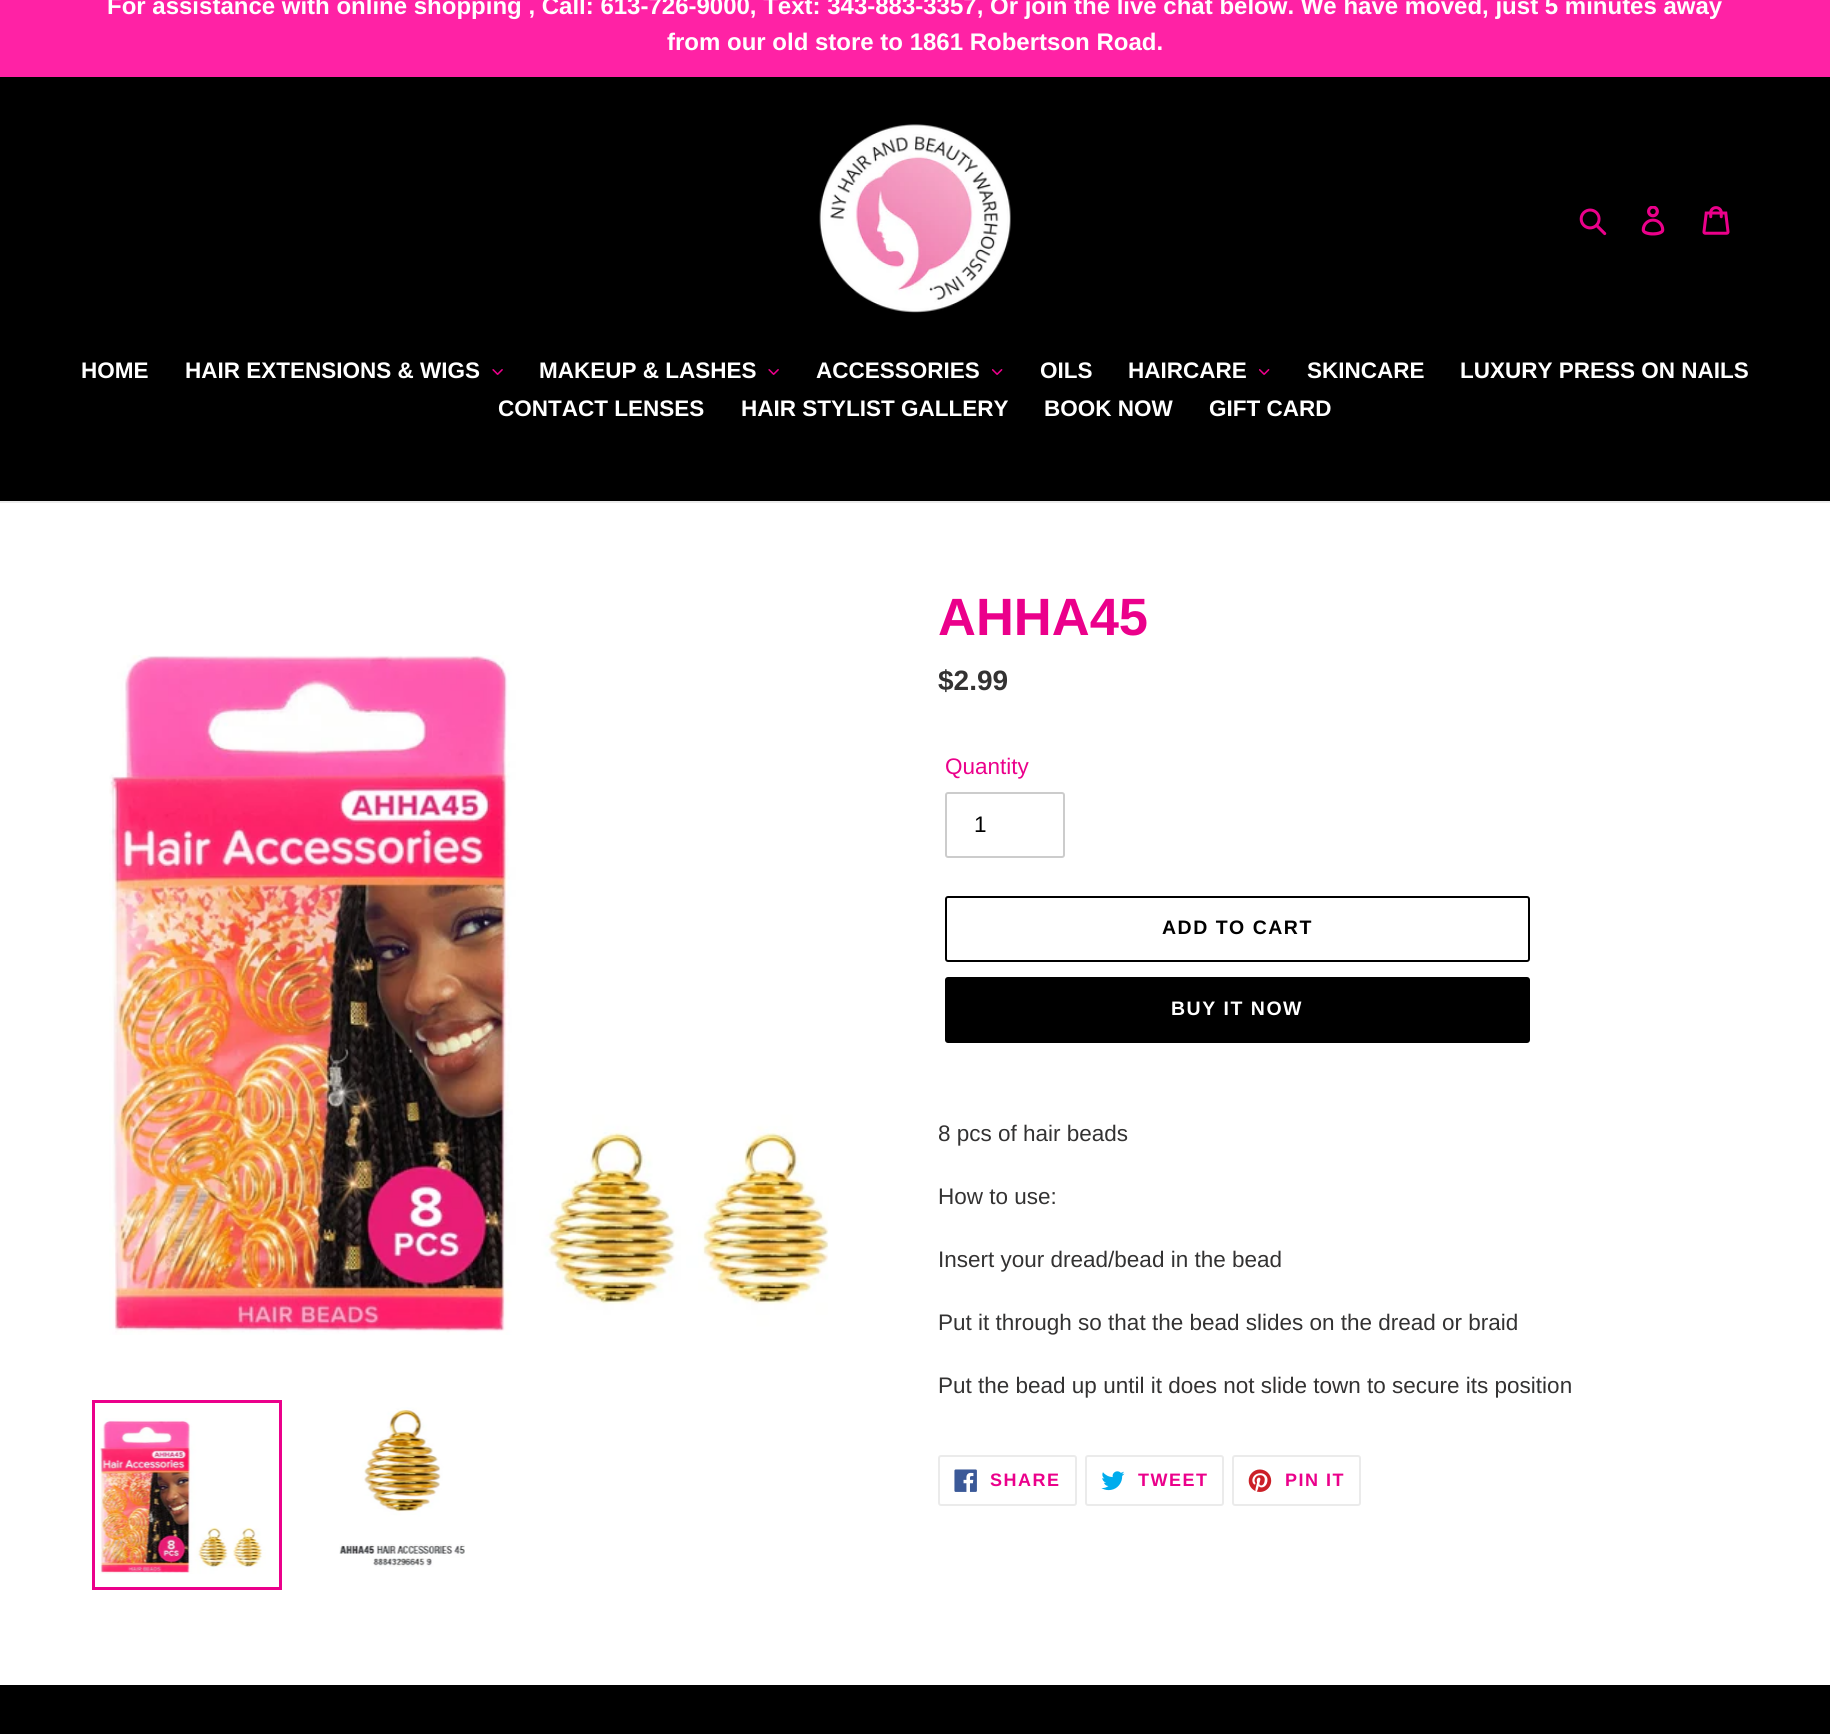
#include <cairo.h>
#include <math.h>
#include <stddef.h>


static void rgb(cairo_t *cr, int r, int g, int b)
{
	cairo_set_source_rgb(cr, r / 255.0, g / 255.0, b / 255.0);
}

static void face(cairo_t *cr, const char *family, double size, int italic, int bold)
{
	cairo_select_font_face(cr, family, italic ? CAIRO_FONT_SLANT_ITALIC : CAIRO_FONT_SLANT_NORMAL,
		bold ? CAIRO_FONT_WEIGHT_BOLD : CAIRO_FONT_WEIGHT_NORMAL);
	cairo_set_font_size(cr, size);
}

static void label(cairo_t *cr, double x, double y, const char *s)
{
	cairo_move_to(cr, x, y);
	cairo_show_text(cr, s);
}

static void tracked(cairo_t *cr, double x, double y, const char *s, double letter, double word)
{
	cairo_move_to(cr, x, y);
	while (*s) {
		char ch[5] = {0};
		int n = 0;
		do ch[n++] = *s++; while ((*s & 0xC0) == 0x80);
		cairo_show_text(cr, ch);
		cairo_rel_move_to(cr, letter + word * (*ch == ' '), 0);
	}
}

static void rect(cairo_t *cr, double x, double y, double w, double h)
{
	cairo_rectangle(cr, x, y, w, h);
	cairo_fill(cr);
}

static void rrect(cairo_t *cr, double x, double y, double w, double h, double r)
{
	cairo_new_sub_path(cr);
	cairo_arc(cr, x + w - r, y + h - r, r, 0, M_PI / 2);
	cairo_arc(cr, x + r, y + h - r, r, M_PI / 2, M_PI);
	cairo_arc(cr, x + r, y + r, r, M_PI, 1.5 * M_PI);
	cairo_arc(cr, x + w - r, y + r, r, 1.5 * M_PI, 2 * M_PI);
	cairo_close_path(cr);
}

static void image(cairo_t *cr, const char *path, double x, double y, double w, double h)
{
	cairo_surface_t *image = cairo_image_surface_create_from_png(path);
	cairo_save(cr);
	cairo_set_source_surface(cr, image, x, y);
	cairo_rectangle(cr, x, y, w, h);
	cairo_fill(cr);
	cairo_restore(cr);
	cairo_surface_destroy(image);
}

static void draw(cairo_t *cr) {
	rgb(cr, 255, 255, 255);
	cairo_paint(cr);
	rgb(cr, 0, 0, 0);
	rect(cr, 0, 77, 1830, 424);
	rgb(cr, 255, 34, 165);
	rect(cr, 0, 0, 1830, 77);
	face(cr, "Liberation Sans", 24, 0, 1);
	rgb(cr, 255, 255, 255);
	label(cr, 107, 14, "For assistance with online shopping , Call: 613-726-9000, Text: 343-883-3357, Or join the live chat below. We have moved, just 5 minutes away");
	label(cr, 667, 50, "from our old store to 1861 Robertson Road.");
	image(cr, "image0.png", 819, 124, 192, 189);
	image(cr, "image1.png", 1579, 208, 28, 28);
	image(cr, "image2.png", 1641, 206, 24, 30);
	image(cr, "image3.png", 1702, 206, 28, 29);
	rgb(cr, 235, 235, 235);
	rect(cr, 0, 501, 1830, 2);
	face(cr, "Liberation Sans", 22.5, 0, 1);
	rgb(cr, 255, 255, 255);
	label(cr, 81, 378, "HOME");
	label(cr, 185, 378, "HAIR EXTENSIONS & WIGS");
	image(cr, "image4.png", 492, 369, 11, 6);
	label(cr, 539, 378, "MAKEUP & LASHES");
	image(cr, "image4.png", 768, 369, 11, 6);
	label(cr, 816, 378, "ACCESSORIES");
	image(cr, "image5.png", 992, 369, 11, 6);
	label(cr, 1040, 378, "OILS");
	label(cr, 1128, 378, "HAIRCARE");
	image(cr, "image5.png", 1259, 369, 11, 6);
	label(cr, 1307, 378, "SKINCARE");
	label(cr, 1460, 378, "LUXURY PRESS ON NAILS");
	label(cr, 498, 416, "CONTACT LENSES");
	label(cr, 741, 416, "HAIR STYLIST GALLERY");
	label(cr, 1044, 416, "BOOK NOW");
	label(cr, 1209, 416, "GIFT CARD");
	image(cr, "image6.png", 109, 655, 720, 680);
	cairo_rectangle(cr, 93.5, 1401.5, 187, 187);
	rgb(cr, 235, 0, 139);
	cairo_set_line_width(cr, 3);
	cairo_stroke(cr);
	image(cr, "image7.png", 98, 1418, 168, 156);
	image(cr, "image8.png", 339, 1407, 126, 160);
	face(cr, "Liberation Sans", 52.5, 0, 1);
	label(cr, 938, 635, "AHHA45");
	face(cr, "Liberation Sans", 28, 0, 1);
	rgb(cr, 51, 50, 50);
	label(cr, 938, 690, "$2.99");
	face(cr, "Liberation Sans", 22.5, 0, 0);
	rgb(cr, 235, 0, 139);
	label(cr, 945, 774, "Quantity");
	rrect(cr, 946, 793, 118, 64, 2);
	rgb(cr, 204, 204, 204);
	cairo_set_line_width(cr, 2);
	cairo_stroke(cr);
	rgb(cr, 0, 0, 0);
	label(cr, 974, 832, "1");
	rrect(cr, 946, 897, 583, 64, 2);
	cairo_stroke(cr);
	face(cr, "Liberation Sans", 19.5, 0, 1);
	tracked(cr, 1162, 934, "ADD TO CART", 1.5, 0);
	rrect(cr, 945, 977, 585, 66, 3);
	cairo_fill(cr);
	rgb(cr, 255, 255, 255);
	tracked(cr, 1171, 1015, "BUY IT NOW", 1.5, 0);
	face(cr, "Liberation Sans", 22.5, 0, 0);
	rgb(cr, 51, 50, 50);
	label(cr, 938, 1141, "8 pcs of hair beads");
	label(cr, 938, 1204, "How to use:");
	label(cr, 938, 1267, "Insert your dread/bead in the bead");
	label(cr, 938, 1330, "Put it through so that the bead slides on the dread or braid");
	label(cr, 938, 1393, "Put the bead up until it does not slide town to secure its position");
	rrect(cr, 939, 1456, 137, 49, 2);
	rgb(cr, 235, 235, 235);
	cairo_stroke(cr);
	image(cr, "image9.png", 954, 1469, 23, 23);
	face(cr, "Liberation Sans", 18, 0, 1);
	rgb(cr, 235, 0, 139);
	tracked(cr, 990, 1486, "SHARE", 1.5, 0);
	rrect(cr, 1086, 1456, 137, 49, 2);
	rgb(cr, 235, 235, 235);
	cairo_stroke(cr);
	image(cr, "image10.png", 1101, 1471, 24, 20);
	rgb(cr, 235, 0, 139);
	tracked(cr, 1138, 1486, "TWEET", 1.5, 0);
	rrect(cr, 1233, 1456, 127, 49, 2);
	rgb(cr, 235, 235, 235);
	cairo_stroke(cr);
	image(cr, "image11.png", 1248, 1469, 24, 23);
	rgb(cr, 235, 0, 139);
	tracked(cr, 1285, 1486, "PIN IT", 1.5, 0);
	rgb(cr, 0, 0, 0);
	rect(cr, 0, 1685, 1830, 49);
}

int main(void) {
	cairo_surface_t *surface = cairo_image_surface_create(CAIRO_FORMAT_RGB24, 1830, 1734);
	cairo_t *cr = cairo_create(surface);
	cairo_font_options_t *options = cairo_font_options_create();
	cairo_font_options_set_hint_metrics(options, CAIRO_HINT_METRICS_OFF);
	cairo_font_options_set_hint_style(options, CAIRO_HINT_STYLE_NONE);
	cairo_set_font_options(cr, options);
	cairo_set_miter_limit(cr, 4);
	draw(cr);
	cairo_surface_write_to_png(surface, "render.png");
	cairo_font_options_destroy(options);
	cairo_destroy(cr);
	cairo_surface_destroy(surface);
	return 0;
}
